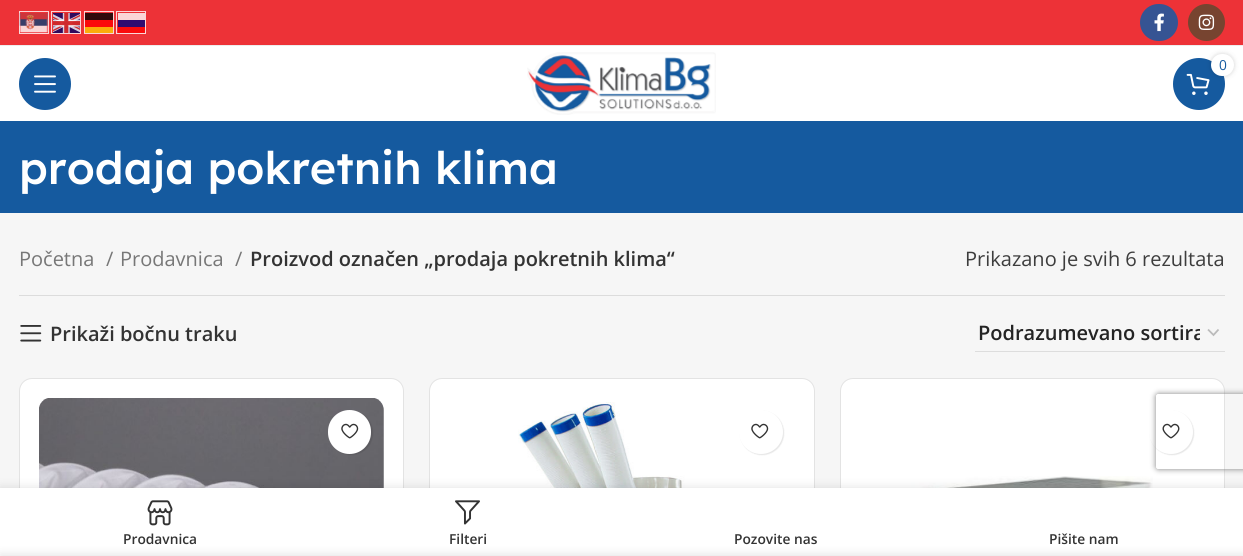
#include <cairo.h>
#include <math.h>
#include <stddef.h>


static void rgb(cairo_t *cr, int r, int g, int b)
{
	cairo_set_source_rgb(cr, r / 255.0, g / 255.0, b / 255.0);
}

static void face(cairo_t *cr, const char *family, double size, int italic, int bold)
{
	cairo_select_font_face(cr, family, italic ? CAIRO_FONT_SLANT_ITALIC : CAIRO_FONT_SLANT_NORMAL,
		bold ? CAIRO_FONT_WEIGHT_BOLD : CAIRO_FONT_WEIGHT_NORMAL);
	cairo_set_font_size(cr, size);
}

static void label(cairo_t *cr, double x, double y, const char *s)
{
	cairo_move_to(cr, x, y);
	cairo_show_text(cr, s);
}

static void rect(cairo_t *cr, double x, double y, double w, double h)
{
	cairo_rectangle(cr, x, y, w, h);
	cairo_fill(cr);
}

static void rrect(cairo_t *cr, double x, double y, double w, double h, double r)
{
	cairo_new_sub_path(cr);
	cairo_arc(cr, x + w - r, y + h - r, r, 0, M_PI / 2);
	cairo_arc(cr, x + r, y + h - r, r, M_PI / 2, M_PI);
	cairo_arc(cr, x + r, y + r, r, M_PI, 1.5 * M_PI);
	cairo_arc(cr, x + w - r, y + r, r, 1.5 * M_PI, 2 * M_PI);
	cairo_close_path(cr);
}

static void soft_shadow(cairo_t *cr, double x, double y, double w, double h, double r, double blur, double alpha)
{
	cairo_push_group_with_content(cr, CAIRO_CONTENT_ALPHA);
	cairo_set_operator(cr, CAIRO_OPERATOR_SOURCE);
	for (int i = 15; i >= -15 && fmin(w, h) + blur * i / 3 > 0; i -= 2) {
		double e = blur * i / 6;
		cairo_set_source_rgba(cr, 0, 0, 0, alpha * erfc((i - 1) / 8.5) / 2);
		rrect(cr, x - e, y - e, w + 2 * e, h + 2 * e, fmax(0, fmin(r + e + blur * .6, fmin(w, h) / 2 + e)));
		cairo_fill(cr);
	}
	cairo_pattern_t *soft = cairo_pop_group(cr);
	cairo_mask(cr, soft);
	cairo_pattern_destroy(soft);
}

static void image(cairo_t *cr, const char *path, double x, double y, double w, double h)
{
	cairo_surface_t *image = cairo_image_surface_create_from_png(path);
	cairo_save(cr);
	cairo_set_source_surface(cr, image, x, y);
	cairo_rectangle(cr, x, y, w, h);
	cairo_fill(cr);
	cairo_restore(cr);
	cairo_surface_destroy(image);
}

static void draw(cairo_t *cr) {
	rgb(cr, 246, 246, 246);
	cairo_paint(cr);
	rgb(cr, 237, 50, 55);
	rect(cr, 0, 0, 1243, 45);
	rgb(cr, 237, 237, 237);
	rect(cr, 0, 45, 1243, 1);
	cairo_rectangle(cr, 19.5, 11.5, 29, 22);
	rgb(cr, 251, 214, 215);
	cairo_set_line_width(cr, 1);
	cairo_stroke(cr);
	cairo_rectangle(cr, 51.5, 11.5, 29, 22);
	cairo_stroke(cr);
	cairo_rectangle(cr, 84.5, 11.5, 29, 22);
	cairo_stroke(cr);
	cairo_rectangle(cr, 116.5, 11.5, 29, 22);
	cairo_stroke(cr);
	image(cr, "image0.png", 19, 13, 29, 20);
	image(cr, "image1.png", 53, 13, 27, 20);
	rgb(cr, 47, 10, 11);
	rect(cr, 85, 13, 28, 7);
	rgb(cr, 251, 214, 215);
	rect(cr, 118, 13, 27, 7);
	rgb(cr, 251, 10, 11);
	rect(cr, 85, 20, 28, 7);
	rgb(cr, 48, 11, 112);
	rect(cr, 118, 20, 27, 7);
	rgb(cr, 251, 173, 11);
	rect(cr, 85, 27, 28, 6);
	rgb(cr, 251, 11, 12);
	rect(cr, 118, 27, 27, 6);
	rgb(cr, 54, 84, 147);
	rrect(cr, 1140, 4, 38, 37, 18.5);
	cairo_fill(cr);
	image(cr, "image2.png", 1154, 13, 10, 19);
	rgb(cr, 119, 68, 48);
	cairo_arc(cr, 1206.5, 22.5, 18.5, 0, 2 * M_PI);
	cairo_fill(cr);
	image(cr, "image3.png", 1198, 14, 17, 16);
	rgb(cr, 255, 255, 255);
	rect(cr, 0, 46, 1243, 75);
	rgb(cr, 21, 90, 159);
	cairo_arc(cr, 45, 84, 26, 0, 2 * M_PI);
	cairo_fill(cr);
	image(cr, "image4.png", 34, 75, 22, 18);
	image(cr, "image5.png", 527, 52, 189, 63);
	cairo_arc(cr, 1199, 84, 26, 0, 2 * M_PI);
	cairo_fill(cr);
	image(cr, "image6.png", 1186, 73, 24, 22);
	rgb(cr, 0, 0, 0);
	soft_shadow(cr, 1211, 54, 23, 22, 11, 2.5, 0.17);
	rgb(cr, 255, 255, 255);
	rrect(cr, 1211, 54, 23, 22, 11);
	cairo_fill(cr);
	face(cr, "Open Sans", 13.75, 0, 0);
	rgb(cr, 21, 90, 159);
	label(cr, 1219, 70, "0");
	rect(cr, 0, 121, 1243, 92);
	face(cr, "Lexend Deca Medium", 45, 0, 0);
	rgb(cr, 255, 255, 255);
	label(cr, 19, 184, "prodaja pokretnih klima");
	rgb(cr, 220, 220, 220);
	rect(cr, 19, 295, 1206, 1);
	face(cr, "Open Sans", 20, 0, 0);
	rgb(cr, 119, 119, 119);
	label(cr, 19, 266, "Početna");
	label(cr, 106, 266, "/");
	label(cr, 120, 266, "Prodavnica");
	label(cr, 235, 266, "/");
	face(cr, "Open Sans SemiBold", 20, 0, 0);
	rgb(cr, 51, 51, 51);
	label(cr, 250, 266, "Proizvod označen „prodaja pokretnih klima“");
	face(cr, "Open Sans", 20, 0, 0);
	rgb(cr, 61, 61, 61);
	label(cr, 965, 266, "Prikazano je svih 6 rezultata");
	image(cr, "image7.png", 20, 325, 22, 17);
	face(cr, "Open Sans SemiBold", 20, 0, 0);
	rgb(cr, 51, 51, 51);
	label(cr, 50, 341, "Prikaži bočnu traku");
	cairo_new_path(cr);
	cairo_move_to(cr, 1208, 329.5);
	cairo_line_to(cr, 1213.5, 335);
	cairo_line_to(cr, 1218.5, 329.5);
	rgb(cr, 187, 187, 187);
	cairo_set_line_width(cr, 1.8);
	cairo_stroke(cr);
	rgb(cr, 221, 221, 221);
	rect(cr, 975, 351, 250, 1);
	cairo_save(cr);
	cairo_rectangle(cr, 978, 321, 222, 24);
	cairo_clip(cr);
	rgb(cr, 36, 36, 36);
	label(cr, 978, 340, "Podrazumevano sortira");
	cairo_restore(cr);
	rgb(cr, 255, 255, 255);
	rrect(cr, 19, 378, 385, 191, 13);
	cairo_fill(cr);
	rrect(cr, 19.5, 378.5, 384, 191, 12.5);
	cairo_set_source_rgba(cr, 0, 0, 0, 0.11);
	cairo_set_line_width(cr, 1);
	cairo_stroke(cr);
	image(cr, "image8.png", 39, 398, 345, 90);
	rgb(cr, 0, 0, 0);
	soft_shadow(cr, 329, 411, 44, 44, 22, 0.5, 0.1);
	rgb(cr, 255, 255, 255);
	rrect(cr, 328, 410, 43, 44, 21.5);
	cairo_fill(cr);
	image(cr, "image9.png", 341, 423, 18, 16);
	rrect(cr, 429, 378, 386, 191, 13);
	cairo_fill(cr);
	rrect(cr, 429.5, 378.5, 385, 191, 12.5);
	cairo_set_source_rgba(cr, 0, 0, 0, 0.11);
	cairo_stroke(cr);
	image(cr, "image10.png", 518, 402, 213, 86);
	rgb(cr, 0, 0, 0);
	soft_shadow(cr, 740, 411, 44, 44, 22, 0.5, 0.1);
	rgb(cr, 255, 255, 255);
	cairo_arc(cr, 761, 432, 22, 0, 2 * M_PI);
	cairo_fill(cr);
	image(cr, "image9.png", 751, 423, 18, 16);
	rrect(cr, 840, 378, 385, 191, 13);
	cairo_fill(cr);
	rrect(cr, 840.5, 378.5, 384, 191, 12.5);
	cairo_set_source_rgba(cr, 0, 0, 0, 0.11);
	cairo_stroke(cr);
	rgb(cr, 0, 0, 0);
	soft_shadow(cr, 1150, 411, 44, 44, 22, 0.5, 0.1);
	rgb(cr, 255, 255, 255);
	cairo_arc(cr, 1171, 432, 22, 0, 2 * M_PI);
	cairo_fill(cr);
	image(cr, "image11.png", 1162, 423, 18, 16);
	image(cr, "image12.png", 904, 476, 249, 12);
	cairo_save(cr);
	cairo_set_fill_rule(cr, CAIRO_FILL_RULE_EVEN_ODD);
	cairo_new_path(cr);
	cairo_move_to(cr, 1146, 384);
	cairo_line_to(cr, 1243, 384);
	cairo_line_to(cr, 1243, 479);
	cairo_line_to(cr, 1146, 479);
	cairo_close_path(cr);
	cairo_move_to(cr, 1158.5, 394);
	cairo_line_to(cr, 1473.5, 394);
	cairo_curve_to(cr, 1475, 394, 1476, 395, 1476, 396.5);
	cairo_line_to(cr, 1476, 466.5);
	cairo_curve_to(cr, 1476, 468, 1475, 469, 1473.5, 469);
	cairo_line_to(cr, 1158.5, 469);
	cairo_curve_to(cr, 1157, 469, 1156, 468, 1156, 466.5);
	cairo_line_to(cr, 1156, 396.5);
	cairo_curve_to(cr, 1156, 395, 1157, 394, 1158.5, 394);
	cairo_close_path(cr);
	cairo_clip(cr);
	rgb(cr, 128, 128, 128);
	soft_shadow(cr, 1156, 394, 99, 75, 2.5, 3, 1);
	cairo_restore(cr);
	rgb(cr, 0, 0, 0);
	soft_shadow(cr, 0, 488, 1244, 68, 0, 5.5, 0.12);
	rgb(cr, 255, 255, 255);
	rect(cr, 0, 488, 1243, 68);
	image(cr, "image13.png", 147, 500, 26, 26);
	face(cr, "Open Sans SemiBold", 13.75, 0, 0);
	rgb(cr, 51, 51, 51);
	label(cr, 123, 544, "Prodavnica");
	image(cr, "image14.png", 455, 500, 25, 25);
	label(cr, 449, 544, "Filteri");
	label(cr, 734, 544, "Pozovite nas");
	label(cr, 1049, 544, "Pišite nam");
	rgb(cr, 0, 0, 0);
	soft_shadow(cr, 0, 556, 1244, 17, 0, 5.5, 0.14);
}

int main(void) {
	cairo_surface_t *surface = cairo_image_surface_create(CAIRO_FORMAT_RGB24, 1243, 556);
	cairo_t *cr = cairo_create(surface);
	cairo_font_options_t *options = cairo_font_options_create();
	cairo_font_options_set_hint_metrics(options, CAIRO_HINT_METRICS_OFF);
	cairo_font_options_set_hint_style(options, CAIRO_HINT_STYLE_NONE);
	cairo_set_font_options(cr, options);
	cairo_set_miter_limit(cr, 4);
	draw(cr);
	cairo_surface_write_to_png(surface, "render.png");
	cairo_font_options_destroy(options);
	cairo_destroy(cr);
	cairo_surface_destroy(surface);
	return 0;
}
